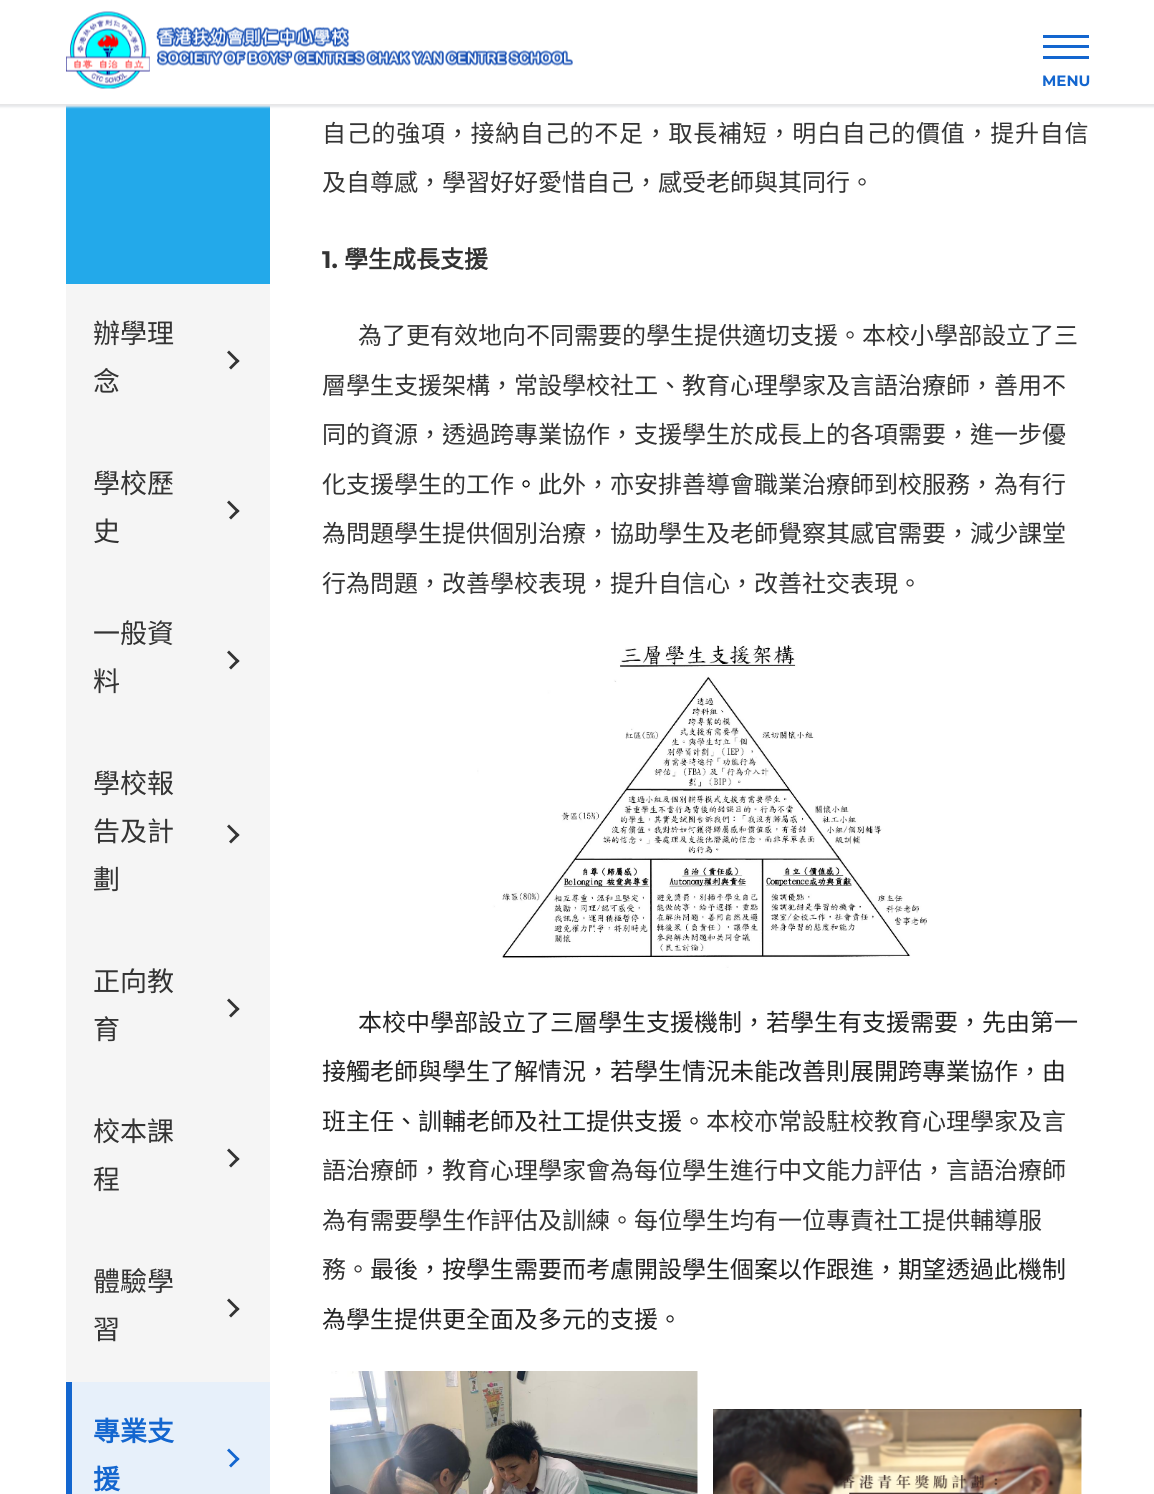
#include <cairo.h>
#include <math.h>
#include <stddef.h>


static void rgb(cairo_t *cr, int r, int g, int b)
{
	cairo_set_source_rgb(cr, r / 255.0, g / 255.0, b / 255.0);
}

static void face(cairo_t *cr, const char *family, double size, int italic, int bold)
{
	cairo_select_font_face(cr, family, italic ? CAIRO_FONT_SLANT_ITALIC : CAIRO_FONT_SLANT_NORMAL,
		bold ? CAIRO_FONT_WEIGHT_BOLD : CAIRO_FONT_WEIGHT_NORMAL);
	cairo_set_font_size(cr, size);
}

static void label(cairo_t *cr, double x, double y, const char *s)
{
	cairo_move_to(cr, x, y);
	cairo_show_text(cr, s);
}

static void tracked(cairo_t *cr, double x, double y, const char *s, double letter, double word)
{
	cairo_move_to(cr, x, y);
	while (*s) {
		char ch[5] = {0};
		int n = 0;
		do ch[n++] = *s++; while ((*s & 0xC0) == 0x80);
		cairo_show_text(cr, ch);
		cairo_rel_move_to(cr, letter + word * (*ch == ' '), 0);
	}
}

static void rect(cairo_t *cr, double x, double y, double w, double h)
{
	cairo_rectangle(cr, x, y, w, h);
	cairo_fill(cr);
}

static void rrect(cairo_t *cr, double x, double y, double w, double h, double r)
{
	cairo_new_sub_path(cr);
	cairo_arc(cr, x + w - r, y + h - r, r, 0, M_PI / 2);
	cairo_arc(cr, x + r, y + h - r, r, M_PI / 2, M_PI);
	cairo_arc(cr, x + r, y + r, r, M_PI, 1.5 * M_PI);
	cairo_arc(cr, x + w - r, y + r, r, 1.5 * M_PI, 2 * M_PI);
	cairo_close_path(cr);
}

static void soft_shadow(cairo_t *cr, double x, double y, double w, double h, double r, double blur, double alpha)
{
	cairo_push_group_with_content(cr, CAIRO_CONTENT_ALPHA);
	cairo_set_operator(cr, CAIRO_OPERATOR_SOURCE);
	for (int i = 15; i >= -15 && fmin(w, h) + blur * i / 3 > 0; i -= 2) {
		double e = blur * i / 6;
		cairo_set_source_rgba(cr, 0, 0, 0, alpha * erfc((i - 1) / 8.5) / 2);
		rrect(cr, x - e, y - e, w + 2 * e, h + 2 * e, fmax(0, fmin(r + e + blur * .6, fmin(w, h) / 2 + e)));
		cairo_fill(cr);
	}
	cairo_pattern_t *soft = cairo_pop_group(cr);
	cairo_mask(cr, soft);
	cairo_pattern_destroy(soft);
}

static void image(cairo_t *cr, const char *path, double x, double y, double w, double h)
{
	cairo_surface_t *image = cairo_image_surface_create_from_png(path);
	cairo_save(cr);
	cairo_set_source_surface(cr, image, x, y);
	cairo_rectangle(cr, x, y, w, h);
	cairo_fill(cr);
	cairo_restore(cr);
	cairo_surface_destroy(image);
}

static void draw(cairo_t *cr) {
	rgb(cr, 255, 255, 255);
	cairo_paint(cr);
	rgb(cr, 35, 169, 234);
	rect(cr, 66, 105, 204, 179);
	rgb(cr, 230, 231, 234);
	soft_shadow(cr, -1, -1, 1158, 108, 0, 1, 1);
	rgb(cr, 255, 255, 255);
	rect(cr, 0, 0, 1154, 104);
	rgb(cr, 230, 230, 231);
	rect(cr, 0, 104, 1154, 1);
	image(cr, "image0.png", 66, 11, 507, 78);
	rgb(cr, 19, 102, 207);
	rect(cr, 1043, 35, 46, 3);
	rect(cr, 1043, 45, 46, 3);
	rect(cr, 1043, 56, 46, 3);
	face(cr, "Montserrat", 15, 0, 1);
	label(cr, 1042, 86, "MENU");
	rgb(cr, 231, 240, 250);
	rect(cr, 72, 1382, 198, 112);
	rgb(cr, 245, 245, 245);
	rect(cr, 66, 284, 204, 1098);
	face(cr, "Noto Sans CJK HK", 27, 0, 0);
	rgb(cr, 51, 51, 51);
	label(cr, 93, 343, "辦學理");
	label(cr, 93, 391, "念");
	cairo_new_path(cr);
	cairo_move_to(cr, 227, 352.5);
	cairo_line_to(cr, 229, 350.5);
	cairo_line_to(cr, 239.5, 361);
	cairo_line_to(cr, 237.5, 363);
	cairo_close_path(cr);
	cairo_fill(cr);
	cairo_new_path(cr);
	cairo_move_to(cr, 229, 367.5);
	cairo_line_to(cr, 237.5, 359);
	cairo_line_to(cr, 239.5, 361);
	cairo_line_to(cr, 231, 369.5);
	cairo_close_path(cr);
	cairo_fill(cr);
	label(cr, 93, 493, "學校歷");
	label(cr, 93, 541, "史");
	cairo_new_path(cr);
	cairo_move_to(cr, 227, 502.5);
	cairo_line_to(cr, 229, 500.5);
	cairo_line_to(cr, 239.5, 511);
	cairo_line_to(cr, 237.5, 513);
	cairo_close_path(cr);
	cairo_fill(cr);
	cairo_new_path(cr);
	cairo_move_to(cr, 229, 517.5);
	cairo_line_to(cr, 237.5, 509);
	cairo_line_to(cr, 239.5, 511);
	cairo_line_to(cr, 231, 519.5);
	cairo_close_path(cr);
	cairo_fill(cr);
	label(cr, 93, 643, "一般資");
	label(cr, 93, 691, "料");
	cairo_new_path(cr);
	cairo_move_to(cr, 227, 652.5);
	cairo_line_to(cr, 229, 650.5);
	cairo_line_to(cr, 239.5, 661);
	cairo_line_to(cr, 237.5, 663);
	cairo_close_path(cr);
	cairo_fill(cr);
	cairo_new_path(cr);
	cairo_move_to(cr, 229, 667.5);
	cairo_line_to(cr, 237.5, 659);
	cairo_line_to(cr, 239.5, 661);
	cairo_line_to(cr, 231, 669.5);
	cairo_close_path(cr);
	cairo_fill(cr);
	label(cr, 93, 793, "學校報");
	label(cr, 93, 841, "告及計");
	label(cr, 93, 889, "劃");
	cairo_new_path(cr);
	cairo_move_to(cr, 227, 826.5);
	cairo_line_to(cr, 229, 824.5);
	cairo_line_to(cr, 239.5, 835);
	cairo_line_to(cr, 237.5, 837);
	cairo_close_path(cr);
	cairo_fill(cr);
	cairo_new_path(cr);
	cairo_move_to(cr, 229, 841.5);
	cairo_line_to(cr, 237.5, 833);
	cairo_line_to(cr, 239.5, 835);
	cairo_line_to(cr, 231, 843.5);
	cairo_close_path(cr);
	cairo_fill(cr);
	label(cr, 93, 991, "正向教");
	label(cr, 93, 1039, "育");
	cairo_new_path(cr);
	cairo_move_to(cr, 227, 1000.5);
	cairo_line_to(cr, 229, 998.5);
	cairo_line_to(cr, 239.5, 1009);
	cairo_line_to(cr, 237.5, 1011);
	cairo_close_path(cr);
	cairo_fill(cr);
	cairo_new_path(cr);
	cairo_move_to(cr, 229, 1015.5);
	cairo_line_to(cr, 237.5, 1007);
	cairo_line_to(cr, 239.5, 1009);
	cairo_line_to(cr, 231, 1017.5);
	cairo_close_path(cr);
	cairo_fill(cr);
	label(cr, 93, 1141, "校本課");
	label(cr, 93, 1189, "程");
	cairo_new_path(cr);
	cairo_move_to(cr, 227, 1150.5);
	cairo_line_to(cr, 229, 1148.5);
	cairo_line_to(cr, 239.5, 1159);
	cairo_line_to(cr, 237.5, 1161);
	cairo_close_path(cr);
	cairo_fill(cr);
	cairo_new_path(cr);
	cairo_move_to(cr, 229, 1165.5);
	cairo_line_to(cr, 237.5, 1157);
	cairo_line_to(cr, 239.5, 1159);
	cairo_line_to(cr, 231, 1167.5);
	cairo_close_path(cr);
	cairo_fill(cr);
	label(cr, 93, 1291, "體驗學");
	label(cr, 93, 1339, "習");
	cairo_new_path(cr);
	cairo_move_to(cr, 227, 1300.5);
	cairo_line_to(cr, 229, 1298.5);
	cairo_line_to(cr, 239.5, 1309);
	cairo_line_to(cr, 237.5, 1311);
	cairo_close_path(cr);
	cairo_fill(cr);
	cairo_new_path(cr);
	cairo_move_to(cr, 229, 1315.5);
	cairo_line_to(cr, 237.5, 1307);
	cairo_line_to(cr, 239.5, 1309);
	cairo_line_to(cr, 231, 1317.5);
	cairo_close_path(cr);
	cairo_fill(cr);
	rgb(cr, 19, 102, 207);
	rect(cr, 66, 1382, 6, 112);
	face(cr, "Noto Sans CJK HK", 27, 0, 1);
	label(cr, 93, 1441, "專業支");
	label(cr, 93, 1489, "援");
	cairo_new_path(cr);
	cairo_move_to(cr, 227, 1450.5);
	cairo_line_to(cr, 229, 1448.5);
	cairo_line_to(cr, 239.5, 1459);
	cairo_line_to(cr, 237.5, 1461);
	cairo_close_path(cr);
	cairo_fill(cr);
	cairo_new_path(cr);
	cairo_move_to(cr, 229, 1465.5);
	cairo_line_to(cr, 237.5, 1457);
	cairo_line_to(cr, 239.5, 1459);
	cairo_line_to(cr, 231, 1467.5);
	cairo_close_path(cr);
	cairo_fill(cr);
	face(cr, "Noto Sans CJK HK", 24, 0, 0);
	rgb(cr, 51, 51, 51);
	tracked(cr, 322, 142, "自己的強項，接納自己的不足，取長補短，明白自己的價值，提升自信", 0.75, 0);
	label(cr, 322, 191, "及自尊感，學習好好愛惜自己，感受老師與其同行。");
	face(cr, "Montserrat", 24, 0, 1);
	label(cr, 322, 268, "1.");
	face(cr, "Noto Sans CJK HK", 24, 0, 1);
	label(cr, 344, 268, "學生成長支援");
	face(cr, "Noto Sans CJK HK", 24, 0, 0);
	label(cr, 358, 344, "為了更有效地向不同需要的學生提供適切支援。本校小學部設立了三");
	label(cr, 322, 394, "層學生支援架構，常設學校社工、教育心理學家及言語治療師，善用不");
	label(cr, 322, 443, "同的資源，透過跨專業協作，支援學生於成長上的各項需要，進一步優");
	label(cr, 322, 493, "化支援學生的工作");
	rgb(cr, 0, 0, 0);
	label(cr, 514, 493, "。");
	rgb(cr, 51, 51, 51);
	label(cr, 538, 493, "此外，亦安排善導會職業治療師到校服務，為有行");
	label(cr, 322, 542, "為問題學生提供個別治療，協助學生及老師覺察其感官需要，減少課堂");
	label(cr, 322, 592, "行為問題，改善學校表現，提升自信心，改善社交表現。");
	image(cr, "image1.png", 477, 645, 450, 323);
	rgb(cr, 34, 34, 34);
	label(cr, 358, 1031, "本校中學部設立了三層學生支援機制，若學生有支援需要，先由第一");
	label(cr, 322, 1080, "接觸老師與學生了解情況，若學生情況未能改善則展開跨專業協作，由");
	label(cr, 322, 1130, "班主任、訓輔老師及社工提供支援。");
	rgb(cr, 51, 51, 51);
	label(cr, 706, 1130, "本校亦常設駐校教育心理學家及言");
	label(cr, 322, 1179, "語治療師，教育心理學家會為每位學生進行中文能力評估，言語治療師");
	label(cr, 322, 1229, "為有需要學生作評估及訓練。每位學生均有一位專責社工提供輔導服");
	label(cr, 322, 1278, "務。");
	rgb(cr, 34, 34, 34);
	label(cr, 370, 1278, "最後，按學生需要而考慮開設學生個案以作跟進，期望透過此機制");
	label(cr, 322, 1328, "為學生提供更全面及多元的支援。");
	image(cr, "image2.png", 330, 1371, 368, 123);
	image(cr, "image3.png", 713, 1409, 369, 85);
}

int main(void) {
	cairo_surface_t *surface = cairo_image_surface_create(CAIRO_FORMAT_RGB24, 1154, 1494);
	cairo_t *cr = cairo_create(surface);
	cairo_font_options_t *options = cairo_font_options_create();
	cairo_font_options_set_hint_metrics(options, CAIRO_HINT_METRICS_OFF);
	cairo_font_options_set_hint_style(options, CAIRO_HINT_STYLE_NONE);
	cairo_set_font_options(cr, options);
	cairo_set_miter_limit(cr, 4);
	draw(cr);
	cairo_surface_write_to_png(surface, "render.png");
	cairo_font_options_destroy(options);
	cairo_destroy(cr);
	cairo_surface_destroy(surface);
	return 0;
}
